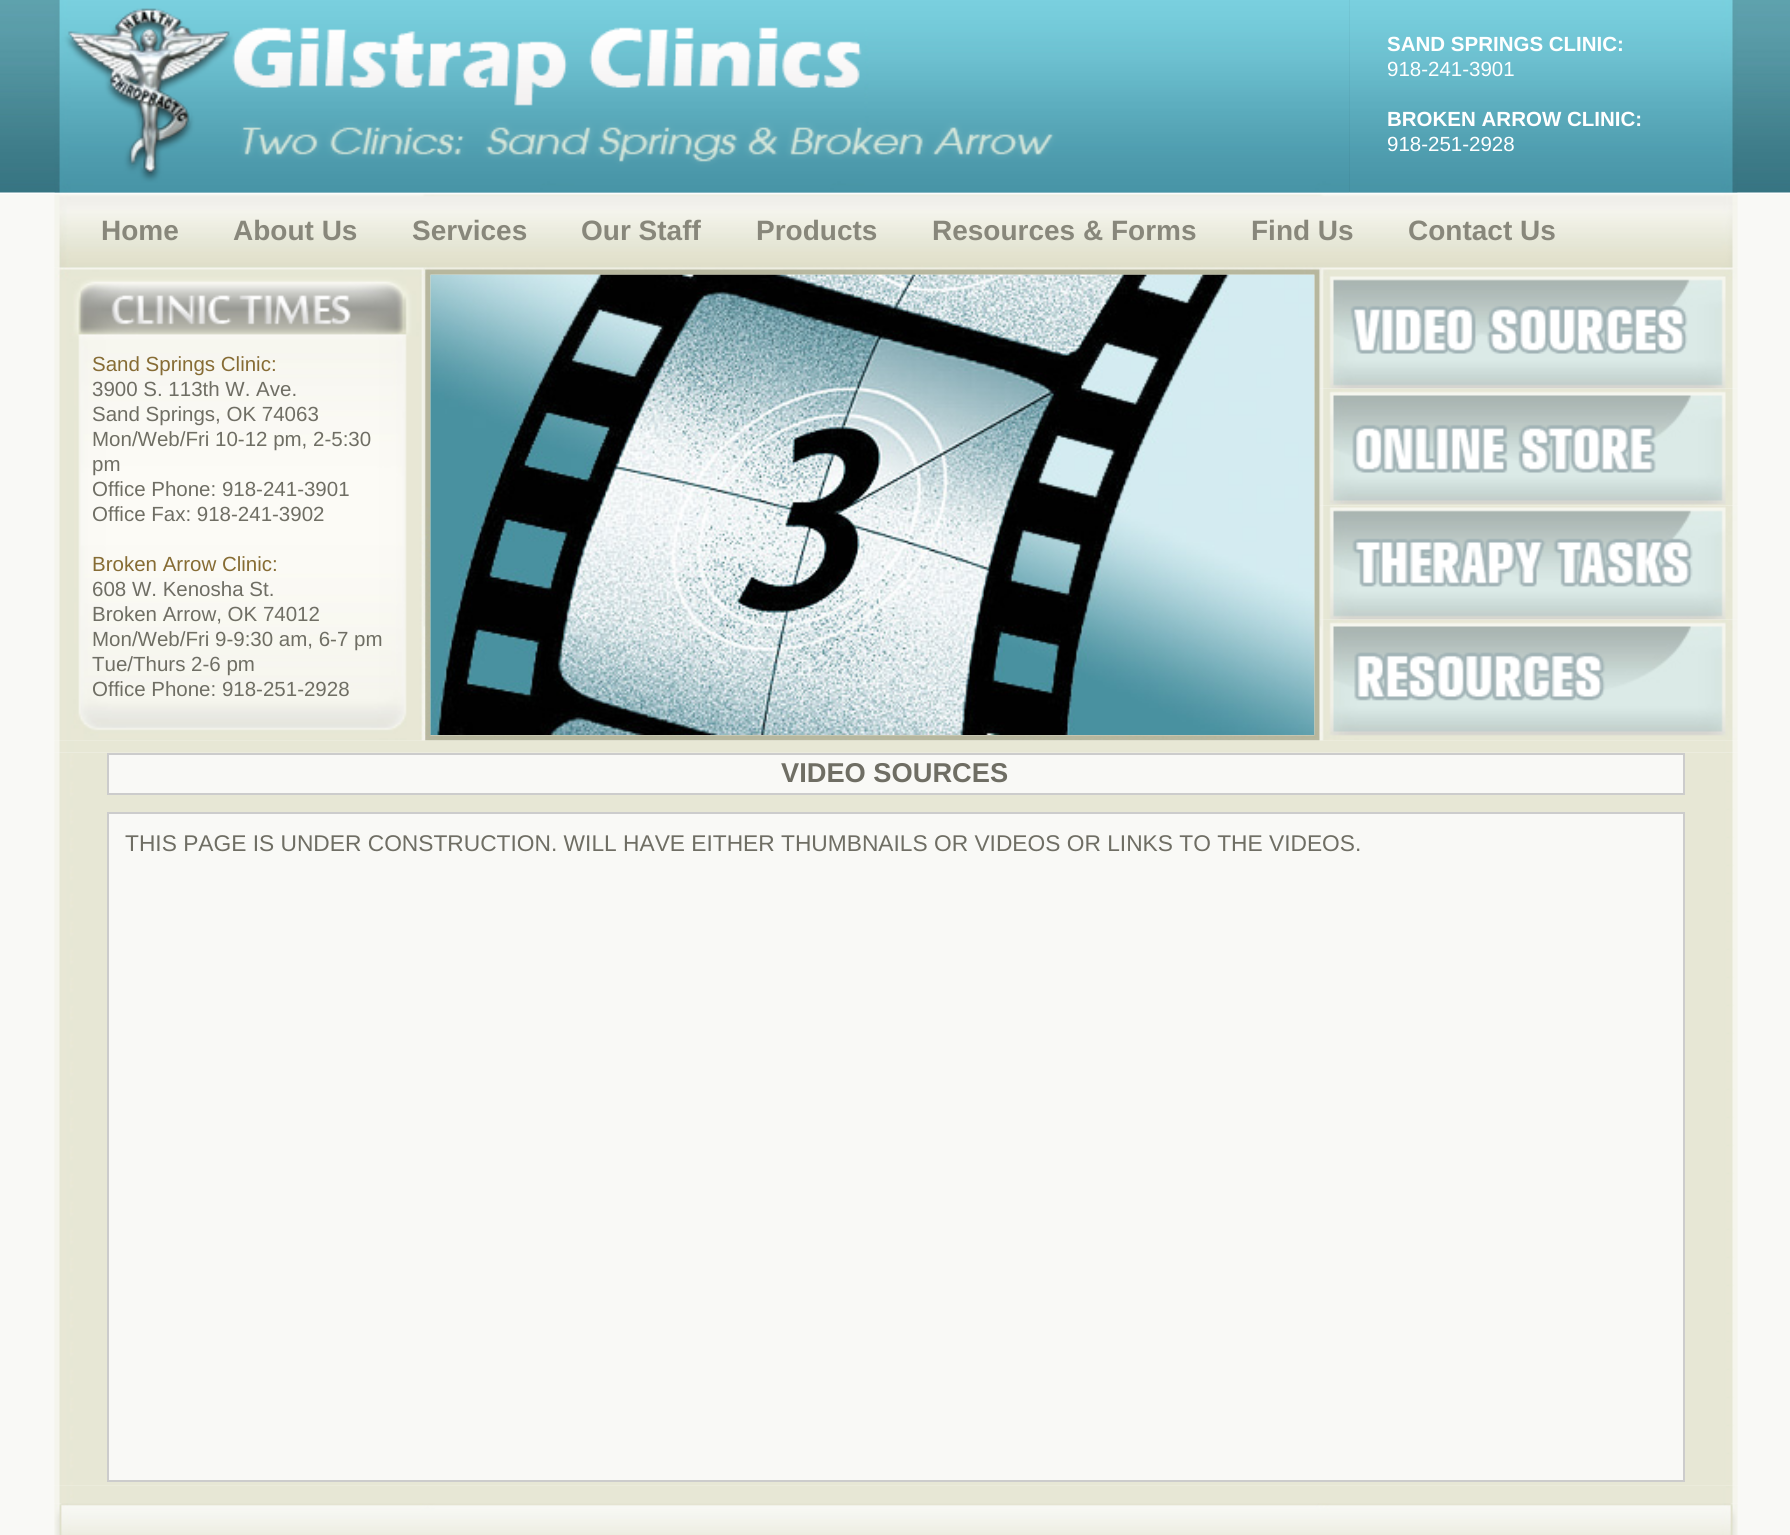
#include <cairo.h>
#include <math.h>
#include <stddef.h>


static void rgb(cairo_t *cr, int r, int g, int b)
{
	cairo_set_source_rgb(cr, r / 255.0, g / 255.0, b / 255.0);
}

static void face(cairo_t *cr, const char *family, double size, int italic, int bold)
{
	cairo_select_font_face(cr, family, italic ? CAIRO_FONT_SLANT_ITALIC : CAIRO_FONT_SLANT_NORMAL,
		bold ? CAIRO_FONT_WEIGHT_BOLD : CAIRO_FONT_WEIGHT_NORMAL);
	cairo_set_font_size(cr, size);
}

static void label(cairo_t *cr, double x, double y, const char *s)
{
	cairo_move_to(cr, x, y);
	cairo_show_text(cr, s);
}

static void image(cairo_t *cr, const char *path, double x, double y, double w, double h)
{
	cairo_surface_t *image = cairo_image_surface_create_from_png(path);
	cairo_save(cr);
	cairo_set_source_surface(cr, image, x, y);
	cairo_rectangle(cr, x, y, w, h);
	cairo_fill(cr);
	cairo_restore(cr);
	cairo_surface_destroy(image);
}

static void draw(cairo_t *cr) {
	rgb(cr, 249, 249, 246);
	cairo_paint(cr);
	image(cr, "image0.png", 0, 0, 1790, 194);
	image(cr, "image3.png", 54, 192, 1684, 76);
	image(cr, "image1.png", 54, 0, 1296, 193);
	image(cr, "image2.png", 1349, 0, 389, 193);
	face(cr, "Liberation Sans", 20.5, 0, 1);
	rgb(cr, 255, 255, 255);
	label(cr, 1387, 51, "SAND SPRINGS CLINIC:");
	face(cr, "Liberation Sans", 20.5, 0, 0);
	label(cr, 1387, 76, "918-241-3901");
	face(cr, "Liberation Sans", 20.5, 0, 1);
	label(cr, 1387, 126, "BROKEN ARROW CLINIC:");
	face(cr, "Liberation Sans", 20.5, 0, 0);
	label(cr, 1387, 151, "918-251-2928");
	face(cr, "Liberation Sans", 28, 0, 1);
	rgb(cr, 136, 135, 123);
	label(cr, 101, 240, "Home");
	label(cr, 233, 240, "About Us");
	label(cr, 412, 240, "Services");
	label(cr, 581, 240, "Our Staff");
	label(cr, 756, 240, "Products");
	label(cr, 932, 240, "Resources & Forms");
	label(cr, 1251, 240, "Find Us");
	label(cr, 1408, 240, "Contact Us");
	image(cr, "image11.png", 54, 740, 1684, 13);
	image(cr, "image4.png", 54, 267, 372, 474);
	face(cr, "Liberation Sans", 20.5, 0, 0);
	rgb(cr, 134, 108, 52);
	label(cr, 92, 371, "Sand Springs Clinic:");
	rgb(cr, 111, 110, 100);
	label(cr, 92, 396, "3900 S. 113th W. Ave.");
	label(cr, 92, 421, "Sand Springs, OK 74063");
	label(cr, 92, 446, "Mon/Web/Fri 10-12 pm, 2-5:30");
	label(cr, 92, 471, "pm");
	label(cr, 92, 496, "Office Phone: 918-241-3901");
	label(cr, 92, 521, "Office Fax: 918-241-3902");
	rgb(cr, 134, 108, 52);
	label(cr, 92, 571, "Broken Arrow Clinic:");
	rgb(cr, 111, 110, 100);
	label(cr, 92, 596, "608 W. Kenosha St.");
	label(cr, 92, 621, "Broken Arrow, OK 74012");
	label(cr, 92, 646, "Mon/Web/Fri 9-9:30 am, 6-7 pm");
	label(cr, 92, 671, "Tue/Thurs 2-6 pm");
	label(cr, 92, 696, "Office Phone: 918-251-2928");
	image(cr, "image7.png", 1319, 267, 419, 122);
	image(cr, "image8.png", 1319, 388, 419, 118);
	image(cr, "image9.png", 1319, 506, 419, 114);
	image(cr, "image10.png", 1319, 619, 419, 122);
	image(cr, "image5.png", 425, 267, 895, 474);
	image(cr, "image6.png", 430, 274, 885, 461);
	image(cr, "image13.png", 54, 1485, 1684, 19);
	image(cr, "image12.png", 54, 752, 1684, 734);
	rgb(cr, 249, 249, 246);
	cairo_rectangle(cr, 108, 754, 1576, 40);
	cairo_fill_preserve(cr);
	rgb(cr, 204, 204, 204);
	cairo_stroke(cr);
	face(cr, "Liberation Sans", 27.25, 0, 1);
	rgb(cr, 111, 110, 100);
	label(cr, 781, 782, "VIDEO SOURCES");
	rgb(cr, 249, 249, 246);
	cairo_rectangle(cr, 108, 813, 1576, 668);
	cairo_fill_preserve(cr);
	rgb(cr, 204, 204, 204);
	cairo_stroke(cr);
	face(cr, "Liberation Sans", 22.75, 0, 0);
	rgb(cr, 111, 110, 100);
	label(cr, 125, 851, "THIS PAGE IS UNDER CONSTRUCTION. WILL HAVE EITHER THUMBNAILS OR VIDEOS OR LINKS TO THE VIDEOS.");
	image(cr, "image14.png", 54, 1503, 1684, 32);
}

int main(void) {
	cairo_surface_t *surface = cairo_image_surface_create(CAIRO_FORMAT_RGB24, 1790, 1535);
	cairo_t *cr = cairo_create(surface);
	cairo_font_options_t *options = cairo_font_options_create();
	cairo_font_options_set_hint_metrics(options, CAIRO_HINT_METRICS_OFF);
	cairo_font_options_set_hint_style(options, CAIRO_HINT_STYLE_NONE);
	cairo_set_font_options(cr, options);
	cairo_set_miter_limit(cr, 4);
	draw(cr);
	cairo_surface_write_to_png(surface, "render.png");
	cairo_font_options_destroy(options);
	cairo_destroy(cr);
	cairo_surface_destroy(surface);
	return 0;
}
